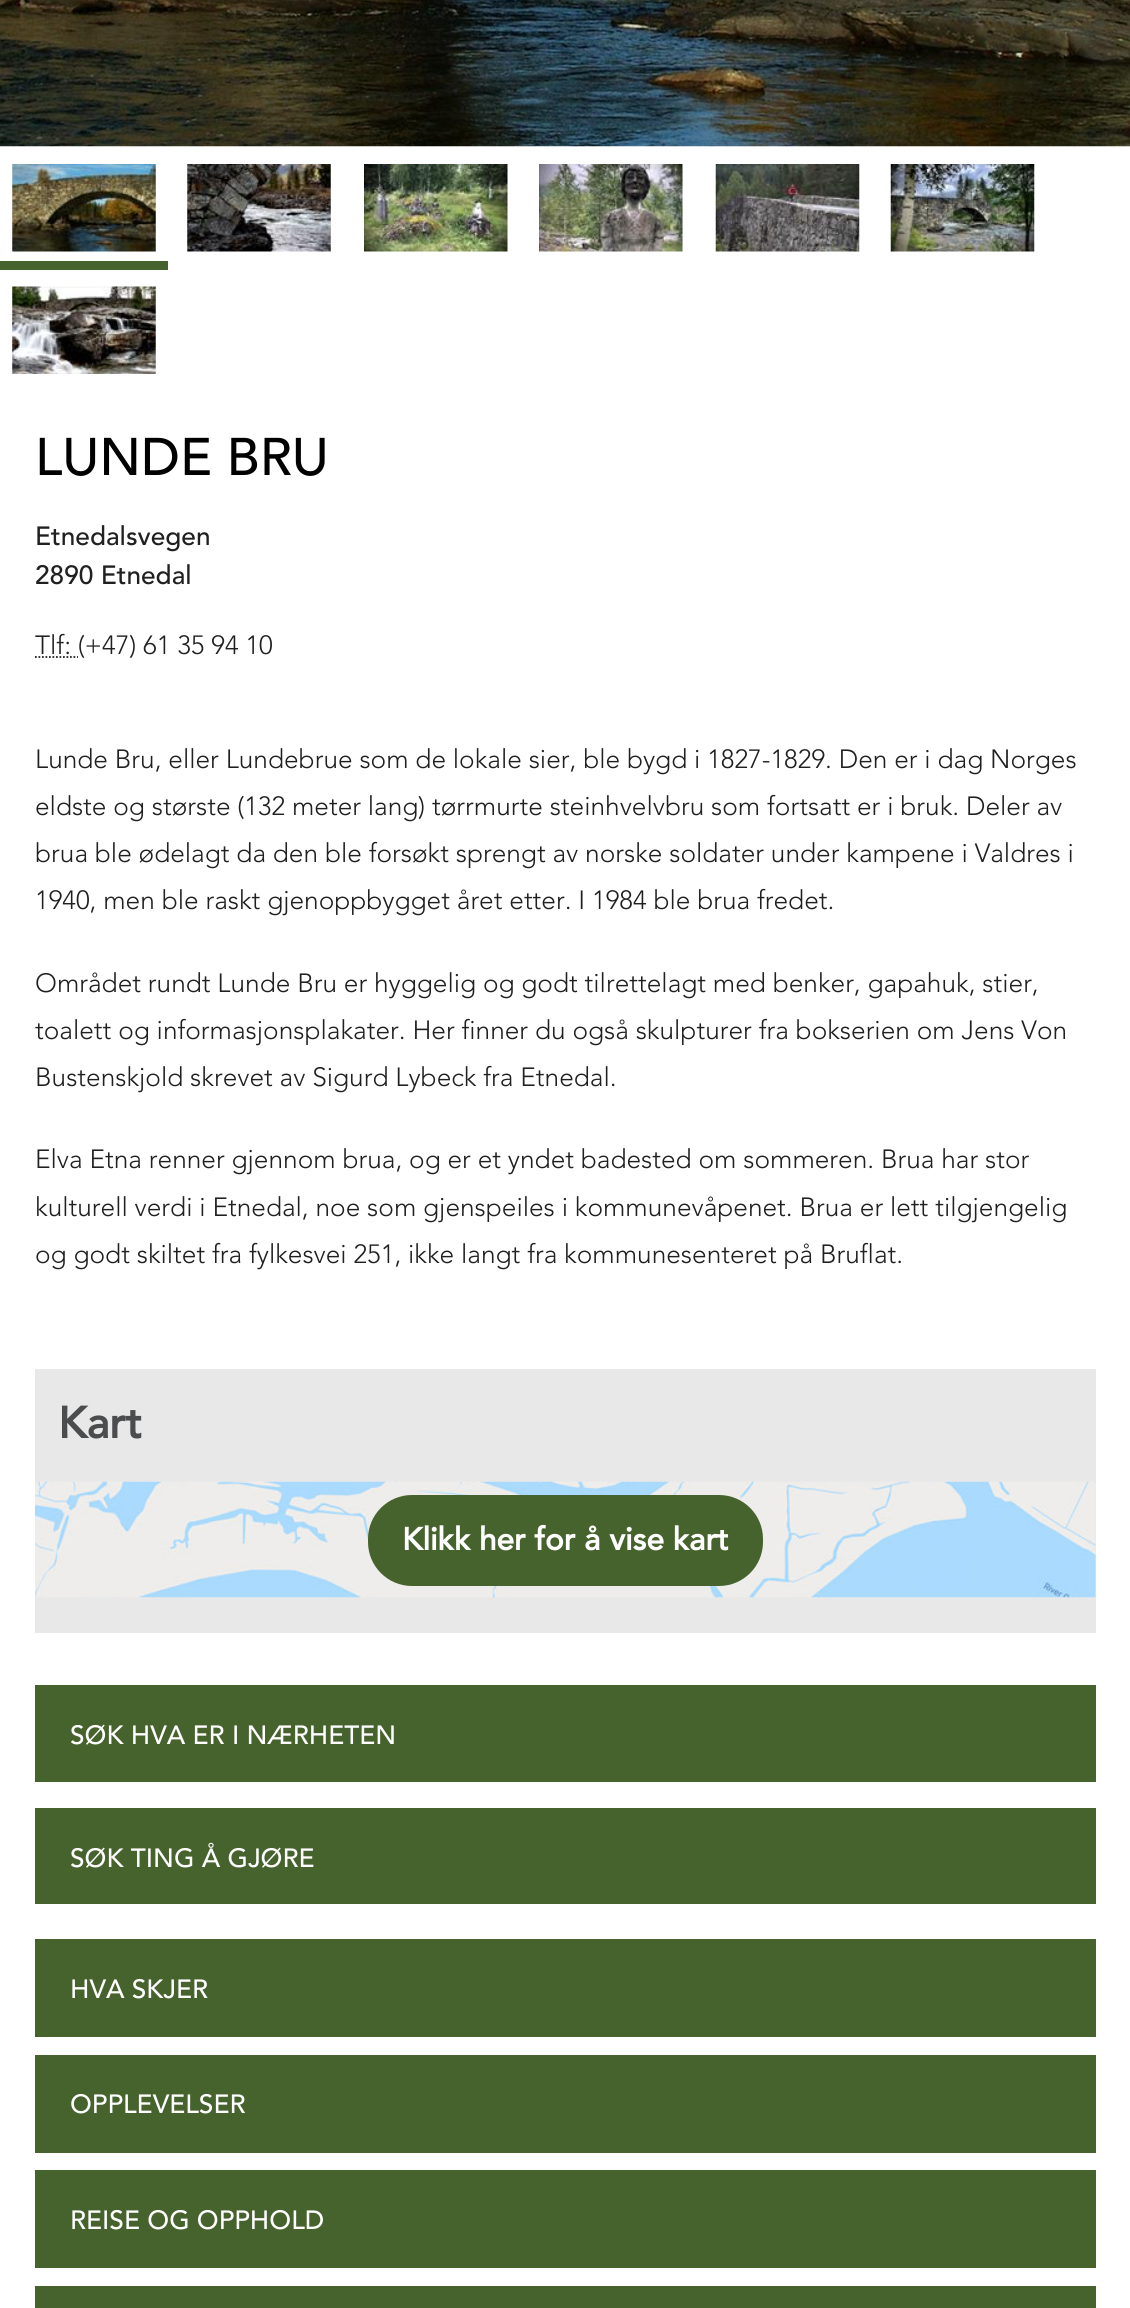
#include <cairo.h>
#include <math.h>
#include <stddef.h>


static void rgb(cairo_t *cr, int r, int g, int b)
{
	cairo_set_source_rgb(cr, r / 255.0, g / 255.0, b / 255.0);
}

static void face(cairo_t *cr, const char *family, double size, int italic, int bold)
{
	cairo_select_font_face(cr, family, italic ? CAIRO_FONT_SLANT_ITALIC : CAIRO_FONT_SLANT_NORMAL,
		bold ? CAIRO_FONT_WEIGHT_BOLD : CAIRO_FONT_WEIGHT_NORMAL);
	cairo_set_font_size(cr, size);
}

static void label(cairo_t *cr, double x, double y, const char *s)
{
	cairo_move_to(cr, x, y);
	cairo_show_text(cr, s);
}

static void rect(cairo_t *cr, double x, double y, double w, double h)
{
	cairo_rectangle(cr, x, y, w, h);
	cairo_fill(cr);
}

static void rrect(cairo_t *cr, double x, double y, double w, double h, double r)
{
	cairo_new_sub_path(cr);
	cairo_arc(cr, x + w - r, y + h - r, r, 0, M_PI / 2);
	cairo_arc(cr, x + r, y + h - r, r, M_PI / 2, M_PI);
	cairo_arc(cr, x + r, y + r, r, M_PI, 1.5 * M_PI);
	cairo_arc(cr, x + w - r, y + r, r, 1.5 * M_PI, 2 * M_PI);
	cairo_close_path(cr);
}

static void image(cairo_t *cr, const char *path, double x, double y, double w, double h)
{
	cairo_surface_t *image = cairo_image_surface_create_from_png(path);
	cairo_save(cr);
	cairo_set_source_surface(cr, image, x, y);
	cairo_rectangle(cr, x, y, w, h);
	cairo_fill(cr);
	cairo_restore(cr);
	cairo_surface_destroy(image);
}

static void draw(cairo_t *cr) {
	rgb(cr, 255, 255, 255);
	cairo_paint(cr);
	image(cr, "image0.png", 0, 0, 1130, 147);
	rgb(cr, 70, 98, 45);
	rect(cr, 0, 261, 168, 9);
	image(cr, "image1.png", 12, 164, 144, 88);
	image(cr, "image2.png", 187, 164, 144, 88);
	image(cr, "image3.png", 364, 164, 144, 88);
	image(cr, "image4.png", 539, 164, 144, 88);
	image(cr, "image5.png", 715, 164, 145, 88);
	image(cr, "image6.png", 890, 164, 145, 88);
	image(cr, "image7.png", 12, 286, 144, 88);
	face(cr, "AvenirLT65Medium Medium", 52.5, 0, 0);
	rgb(cr, 0, 0, 0);
	label(cr, 35, 475, "LUNDE BRU");
	face(cr, "AvenirLT65Medium Medium", 26.25, 0, 0);
	rgb(cr, 32, 32, 32);
	label(cr, 35, 545, "Etnedalsvegen");
	label(cr, 35, 584, "2890 Etnedal");
	cairo_new_path(cr);
	cairo_move_to(cr, 35, 657);
	cairo_line_to(cr, 78, 657);
	cairo_set_line_width(cr, 1.8);
	cairo_set_dash(cr, (double[]){1.75, 1.75}, 2, 0);
	cairo_stroke(cr);
	face(cr, "Avenir Light", 26.25, 0, 0);
	label(cr, 35, 654, "Tlf: (+47) 61 35 94 10");
	label(cr, 35, 768, "Lunde Bru, eller Lundebrue som de lokale sier, ble bygd i 1827-1829. Den er i dag Norges");
	label(cr, 35, 815, "eldste og største (132 meter lang) tørrmurte steinhvelvbru som fortsatt er i bruk. Deler av");
	label(cr, 35, 862, "brua ble ødelagt da den ble forsøkt sprengt av norske soldater under kampene i Valdres i");
	label(cr, 35, 909, "1940, men ble raskt gjenoppbygget året etter. I 1984 ble brua fredet.");
	label(cr, 35, 992, "Området rundt Lunde Bru er hyggelig og godt tilrettelagt med benker, gapahuk, stier,");
	label(cr, 35, 1039, "toalett og informasjonsplakater. Her finner du også skulpturer fra bokserien om Jens Von");
	label(cr, 35, 1086, "Bustenskjold skrevet av Sigurd Lybeck fra Etnedal.");
	label(cr, 35, 1168, "Elva Etna renner gjennom brua, og er et yndet badested om sommeren. Brua har stor");
	label(cr, 35, 1216, "kulturell verdi i Etnedal, noe som gjenspeiles i kommunevåpenet. Brua er lett tilgjengelig");
	label(cr, 35, 1263, "og godt skiltet fra fylkesvei 251, ikke langt fra kommunesenteret på Bruflat.");
	rgb(cr, 232, 232, 232);
	rect(cr, 35, 1369, 1061, 264);
	face(cr, "AvenirLT65Medium", 44, 0, 1);
	rgb(cr, 75, 76, 78);
	label(cr, 58, 1438, "Kart");
	image(cr, "image8.png", 35, 1481, 1061, 117);
	rgb(cr, 70, 98, 45);
	rrect(cr, 368, 1495, 395, 91, 44);
	cairo_fill(cr);
	face(cr, "AvenirLT65Medium", 31.5, 0, 1);
	rgb(cr, 255, 255, 255);
	label(cr, 402, 1550, "Klikk her for å vise kart");
	rgb(cr, 70, 98, 45);
	rect(cr, 35, 1685, 1061, 97);
	face(cr, "AvenirLT65Medium Medium", 26.25, 0, 0);
	rgb(cr, 255, 255, 255);
	label(cr, 70, 1744, "SØK HVA ER I NÆRHETEN");
	rgb(cr, 70, 98, 45);
	rect(cr, 35, 1808, 1061, 96);
	rgb(cr, 255, 255, 255);
	label(cr, 70, 1867, "SØK TING Å GJØRE");
	rgb(cr, 70, 98, 45);
	rect(cr, 35, 1939, 1061, 369);
	rgb(cr, 255, 255, 255);
	rect(cr, 35, 2037, 1061, 18);
	label(cr, 70, 1998, "HVA SKJER");
	rect(cr, 35, 2153, 1061, 17);
	label(cr, 70, 2113, "OPPLEVELSER");
	rect(cr, 35, 2268, 1061, 18);
	label(cr, 70, 2229, "REISE OG OPPHOLD");
}

int main(void) {
	cairo_surface_t *surface = cairo_image_surface_create(CAIRO_FORMAT_RGB24, 1130, 2308);
	cairo_t *cr = cairo_create(surface);
	cairo_font_options_t *options = cairo_font_options_create();
	cairo_font_options_set_hint_metrics(options, CAIRO_HINT_METRICS_OFF);
	cairo_font_options_set_hint_style(options, CAIRO_HINT_STYLE_NONE);
	cairo_set_font_options(cr, options);
	cairo_set_miter_limit(cr, 4);
	draw(cr);
	cairo_surface_write_to_png(surface, "render.png");
	cairo_font_options_destroy(options);
	cairo_destroy(cr);
	cairo_surface_destroy(surface);
	return 0;
}
